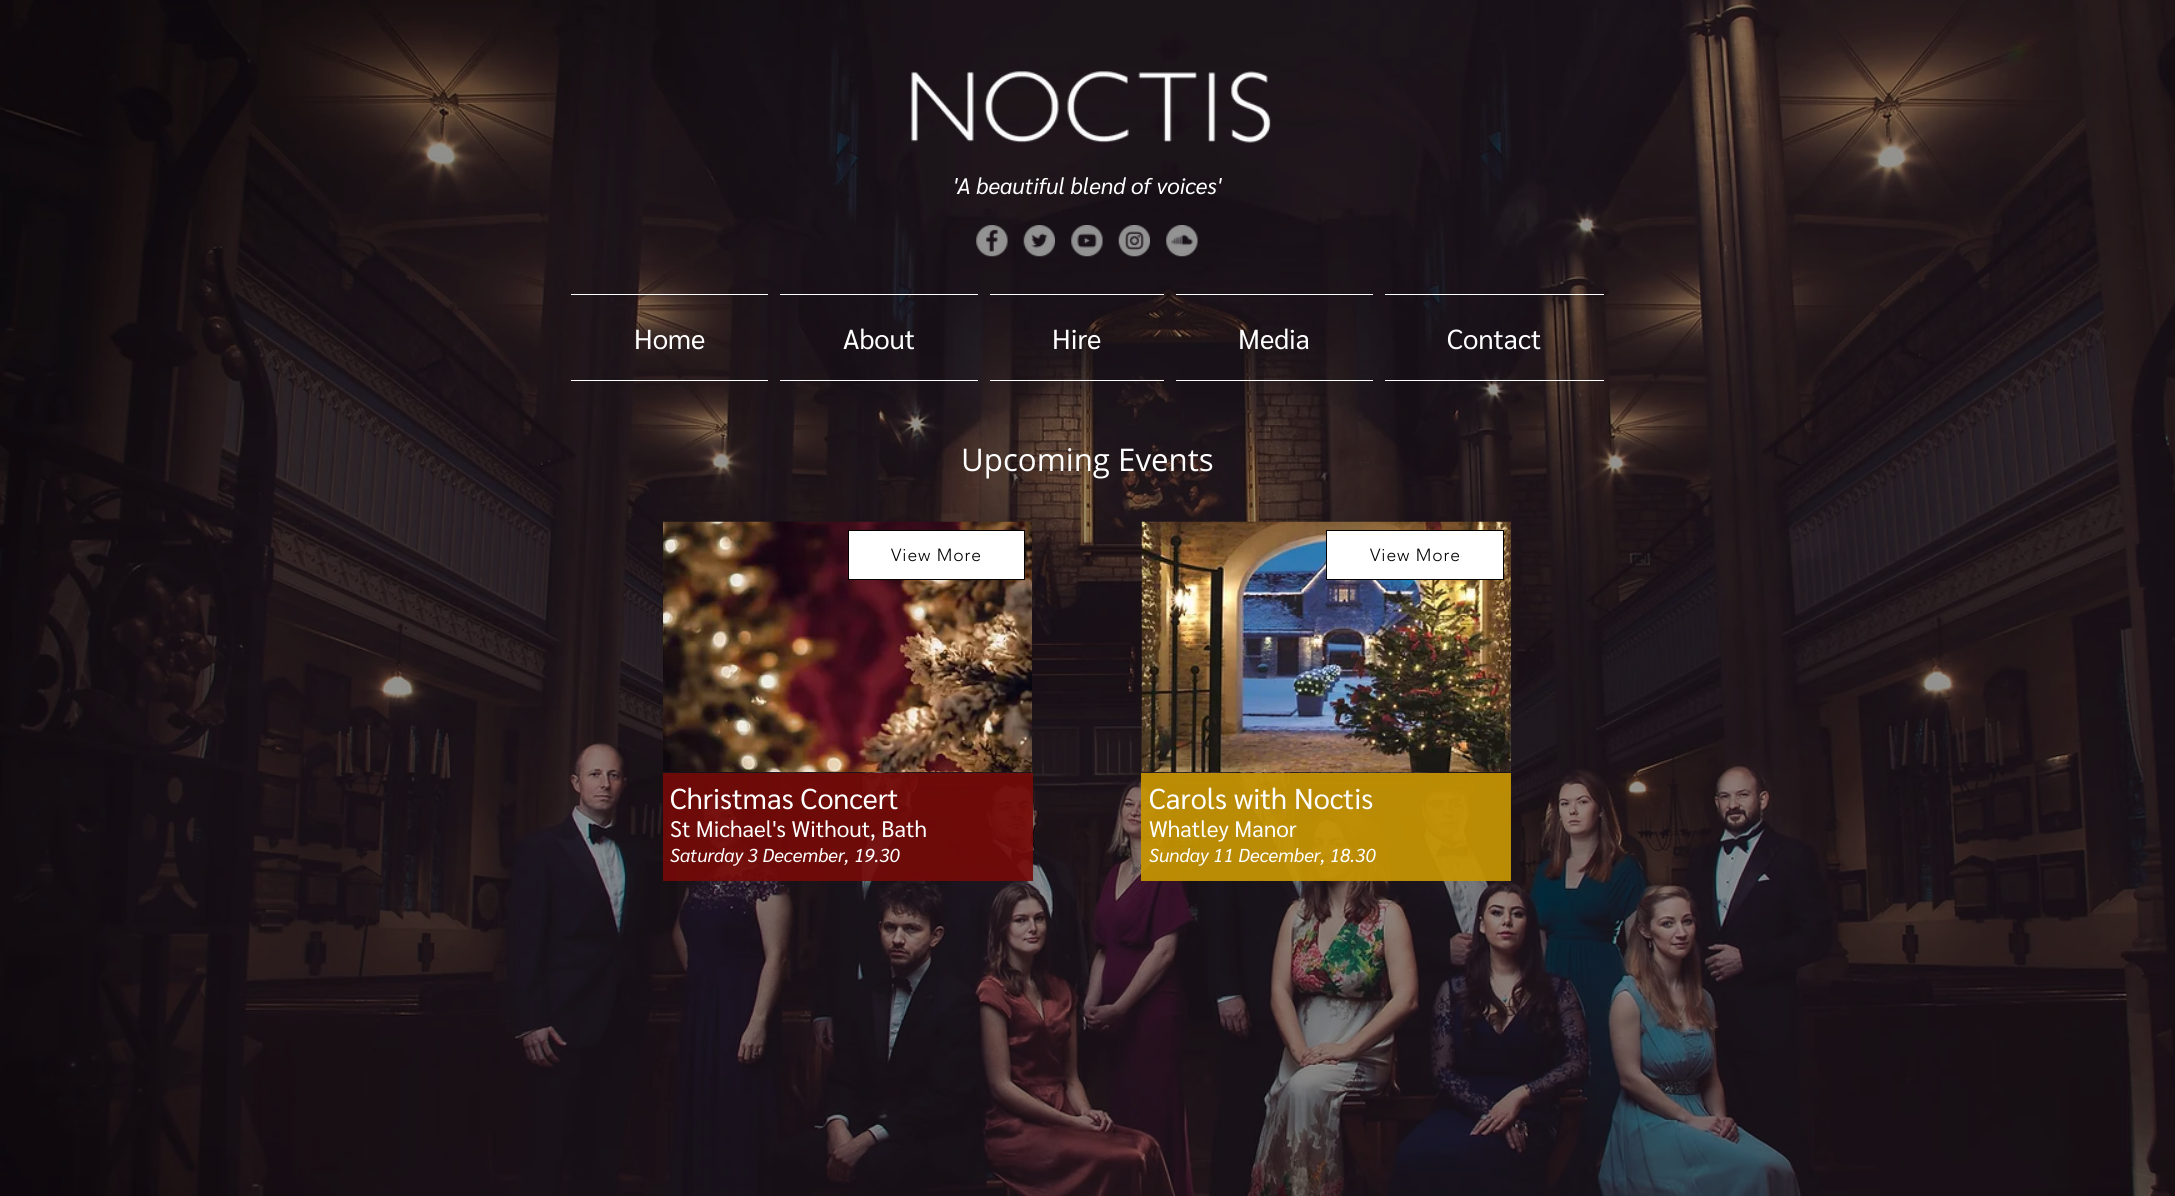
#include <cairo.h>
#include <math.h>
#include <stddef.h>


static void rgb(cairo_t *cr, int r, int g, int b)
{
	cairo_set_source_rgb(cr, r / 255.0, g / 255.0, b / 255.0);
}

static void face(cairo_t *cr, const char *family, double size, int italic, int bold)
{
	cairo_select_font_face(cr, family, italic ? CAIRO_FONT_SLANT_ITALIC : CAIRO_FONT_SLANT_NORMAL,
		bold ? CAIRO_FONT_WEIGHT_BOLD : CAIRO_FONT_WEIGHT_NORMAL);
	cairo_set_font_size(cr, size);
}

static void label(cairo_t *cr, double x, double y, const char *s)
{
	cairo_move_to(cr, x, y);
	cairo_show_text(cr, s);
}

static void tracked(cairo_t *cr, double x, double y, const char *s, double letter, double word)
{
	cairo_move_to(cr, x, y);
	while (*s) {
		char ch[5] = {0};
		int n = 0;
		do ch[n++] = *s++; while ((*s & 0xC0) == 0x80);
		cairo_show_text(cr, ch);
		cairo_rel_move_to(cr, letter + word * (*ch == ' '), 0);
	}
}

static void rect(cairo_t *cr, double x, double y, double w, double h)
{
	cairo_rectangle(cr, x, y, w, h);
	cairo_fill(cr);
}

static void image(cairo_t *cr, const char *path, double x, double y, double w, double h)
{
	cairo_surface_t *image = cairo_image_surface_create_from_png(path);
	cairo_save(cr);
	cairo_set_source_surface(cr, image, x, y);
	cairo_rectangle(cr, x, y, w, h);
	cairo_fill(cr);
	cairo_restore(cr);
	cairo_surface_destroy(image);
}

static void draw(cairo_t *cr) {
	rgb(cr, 0, 0, 0);
	cairo_paint(cr);
	image(cr, "image0.png", 0, 0, 2175, 1196);
	image(cr, "image1.png", 911, 71, 360, 72);
	face(cr, "Sarabun", 22.5, 1, 0);
	rgb(cr, 255, 255, 255);
	label(cr, 953, 194, "'A beautiful blend of voices'");
	image(cr, "image2.png", 976, 225, 32, 32);
	image(cr, "image3.png", 1023, 225, 32, 32);
	image(cr, "image4.png", 1071, 225, 32, 32);
	image(cr, "image5.png", 1118, 225, 32, 32);
	image(cr, "image6.png", 1166, 225, 32, 32);
	rect(cr, 571, 294, 197, 1);
	rect(cr, 571, 380, 197, 1);
	face(cr, "Sarabun", 27.5, 0, 0);
	label(cr, 634, 349, "Home");
	rect(cr, 780, 294, 198, 1);
	rect(cr, 780, 380, 198, 1);
	label(cr, 843, 349, "About");
	rect(cr, 990, 294, 174, 1);
	rect(cr, 990, 380, 174, 1);
	label(cr, 1052, 349, "Hire");
	rect(cr, 1176, 294, 197, 1);
	rect(cr, 1176, 380, 197, 1);
	label(cr, 1238, 349, "Media");
	rect(cr, 1385, 294, 219, 1);
	rect(cr, 1385, 380, 219, 1);
	label(cr, 1447, 349, "Contact");
	face(cr, "Open Sans", 31.25, 0, 0);
	label(cr, 961, 471, "Upcoming Events");
	image(cr, "image7.png", 663, 521, 369, 252);
	image(cr, "image8.png", 1141, 521, 370, 252);
	cairo_rectangle(cr, 848.5, 530.5, 176, 49);
	cairo_fill_preserve(cr);
	rgb(cr, 0, 0, 0);
	cairo_set_line_width(cr, 1);
	cairo_stroke(cr);
	face(cr, "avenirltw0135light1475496 Light", 17.5, 0, 0);
	tracked(cr, 891, 561, "View More", 0.9, 0);
	rgb(cr, 255, 255, 255);
	cairo_rectangle(cr, 1326.5, 530.5, 177, 49);
	cairo_fill_preserve(cr);
	rgb(cr, 0, 0, 0);
	cairo_stroke(cr);
	tracked(cr, 1370, 561, "View More", 0.9, 0);
	cairo_set_source_rgba(cr, 0.463, 0.039, 0.031, 0.91);
	rect(cr, 663, 773, 370, 108);
	face(cr, "Sarabun", 28.75, 0, 0);
	rgb(cr, 255, 255, 255);
	label(cr, 670, 809, "Christmas Concert");
	face(cr, "Sarabun", 22.5, 0, 0);
	label(cr, 670, 837, "St Michael's Without, Bath");
	face(cr, "Sarabun", 18.75, 1, 0);
	label(cr, 670, 862, "Saturday 3 December, 19.30");
	cairo_set_source_rgba(cr, 0.773, 0.58, 0.012, 0.93);
	rect(cr, 1141, 773, 370, 108);
	face(cr, "Sarabun", 28.75, 0, 0);
	rgb(cr, 255, 255, 255);
	label(cr, 1149, 809, "Carols with Noctis");
	face(cr, "Sarabun", 22.5, 0, 0);
	label(cr, 1149, 837, "Whatley Manor");
	face(cr, "Sarabun", 18.75, 1, 0);
	label(cr, 1149, 862, "Sunday 11 December, 18.30");
}

int main(void) {
	cairo_surface_t *surface = cairo_image_surface_create(CAIRO_FORMAT_RGB24, 2175, 1196);
	cairo_t *cr = cairo_create(surface);
	cairo_font_options_t *options = cairo_font_options_create();
	cairo_font_options_set_hint_metrics(options, CAIRO_HINT_METRICS_OFF);
	cairo_font_options_set_hint_style(options, CAIRO_HINT_STYLE_NONE);
	cairo_set_font_options(cr, options);
	cairo_set_miter_limit(cr, 4);
	draw(cr);
	cairo_surface_write_to_png(surface, "render.png");
	cairo_font_options_destroy(options);
	cairo_destroy(cr);
	cairo_surface_destroy(surface);
	return 0;
}
